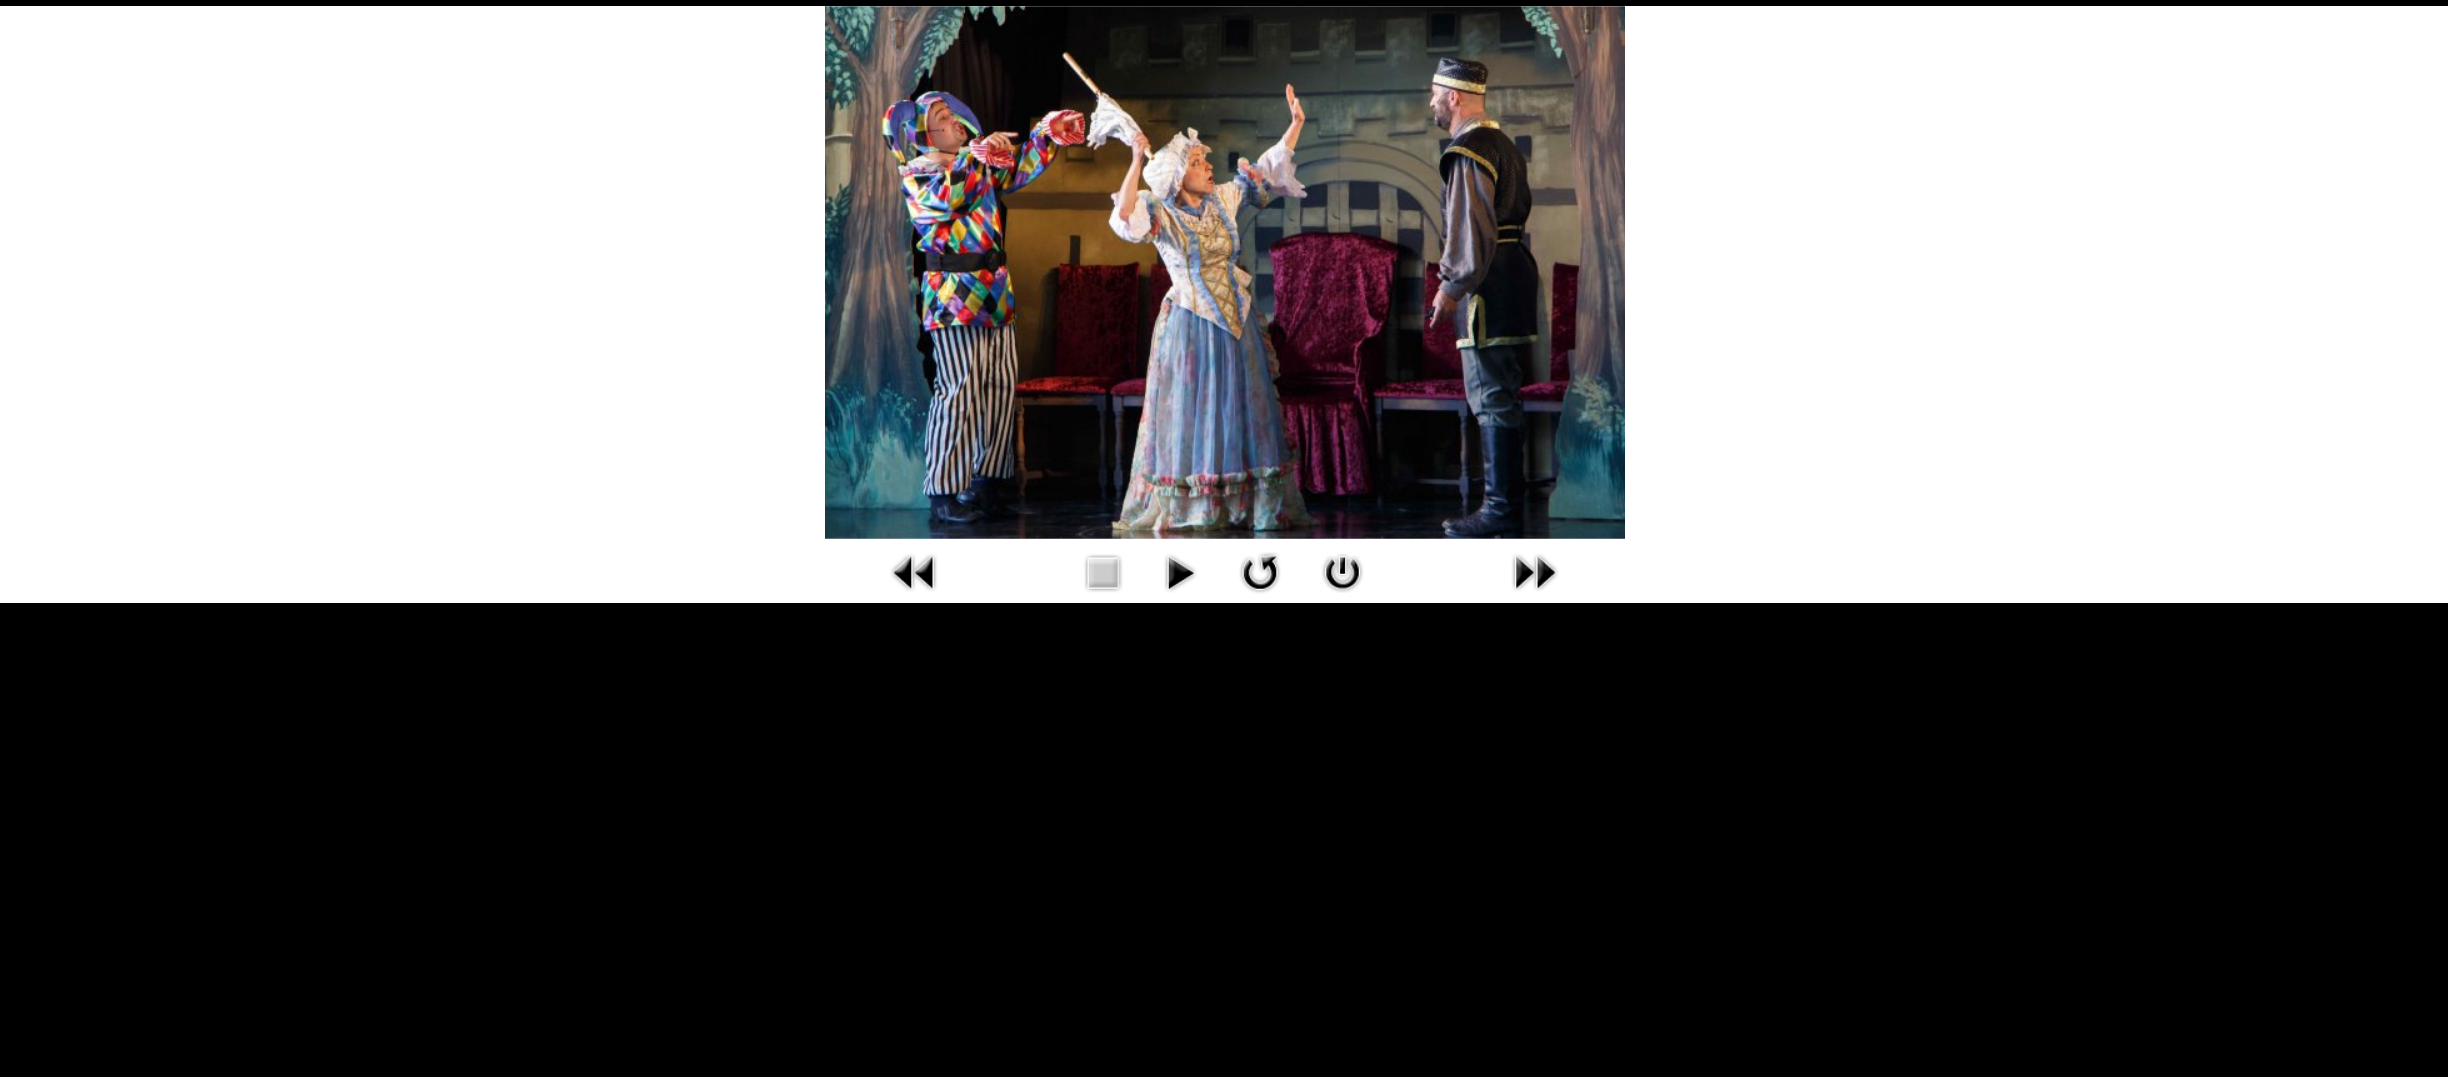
#include <cairo.h>
#include <math.h>
#include <stddef.h>


static void rgb(cairo_t *cr, int r, int g, int b)
{
	cairo_set_source_rgb(cr, r / 255.0, g / 255.0, b / 255.0);
}

static void rect(cairo_t *cr, double x, double y, double w, double h)
{
	cairo_rectangle(cr, x, y, w, h);
	cairo_fill(cr);
}

static void image(cairo_t *cr, const char *path, double x, double y, double w, double h)
{
	cairo_surface_t *image = cairo_image_surface_create_from_png(path);
	cairo_save(cr);
	cairo_set_source_surface(cr, image, x, y);
	cairo_rectangle(cr, x, y, w, h);
	cairo_fill(cr);
	cairo_restore(cr);
	cairo_surface_destroy(image);
}

static void draw(cairo_t *cr) {
	rgb(cr, 0, 0, 0);
	cairo_paint(cr);
	rgb(cr, 255, 255, 255);
	rect(cr, 0, 6, 2448, 597);
	image(cr, "image0.png", 825, 6, 800, 533);
	image(cr, "image1.png", 890, 553, 48, 39);
	image(cr, "image2.png", 1084, 554, 39, 39);
	image(cr, "image3.png", 1164, 554, 34, 39);
	image(cr, "image4.png", 1239, 552, 42, 42);
	image(cr, "image5.png", 1321, 553, 43, 40);
	image(cr, "image6.png", 1511, 553, 48, 39);
}

int main(void) {
	cairo_surface_t *surface = cairo_image_surface_create(CAIRO_FORMAT_RGB24, 2448, 1077);
	cairo_t *cr = cairo_create(surface);
	cairo_font_options_t *options = cairo_font_options_create();
	cairo_font_options_set_hint_metrics(options, CAIRO_HINT_METRICS_OFF);
	cairo_font_options_set_hint_style(options, CAIRO_HINT_STYLE_NONE);
	cairo_set_font_options(cr, options);
	cairo_set_miter_limit(cr, 4);
	draw(cr);
	cairo_surface_write_to_png(surface, "render.png");
	cairo_font_options_destroy(options);
	cairo_destroy(cr);
	cairo_surface_destroy(surface);
	return 0;
}
